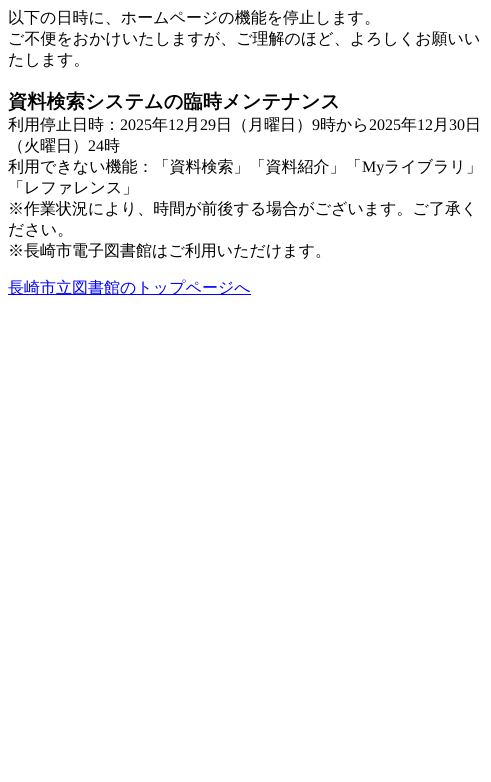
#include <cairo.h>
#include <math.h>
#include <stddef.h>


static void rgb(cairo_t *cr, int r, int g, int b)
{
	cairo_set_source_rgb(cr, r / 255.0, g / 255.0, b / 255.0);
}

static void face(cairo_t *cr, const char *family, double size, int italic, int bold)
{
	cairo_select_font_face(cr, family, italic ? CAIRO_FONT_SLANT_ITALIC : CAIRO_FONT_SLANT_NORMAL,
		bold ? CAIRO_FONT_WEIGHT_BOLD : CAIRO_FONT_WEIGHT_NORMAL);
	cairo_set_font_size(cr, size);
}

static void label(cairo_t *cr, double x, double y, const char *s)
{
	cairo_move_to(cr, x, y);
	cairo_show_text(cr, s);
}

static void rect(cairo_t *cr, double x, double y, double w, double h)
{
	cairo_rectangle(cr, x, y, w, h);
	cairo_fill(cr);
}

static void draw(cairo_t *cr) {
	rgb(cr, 255, 255, 255);
	cairo_paint(cr);
	face(cr, "WenQuanYi Zen Hei Medium", 16, 0, 0);
	rgb(cr, 0, 0, 0);
	label(cr, 8, 23, "以下の日時に、ホームページの機能を停止します。");
	label(cr, 8, 44, "ご不便をおかけいたしますが、ご理解のほど、よろしくお願いい");
	label(cr, 8, 65, "たします。");
	face(cr, "WenQuanYi Zen Hei", 19.25, 0, 1);
	label(cr, 8, 108, "資料検索システムの臨時メンテナンス");
	face(cr, "WenQuanYi Zen Hei Medium", 16, 0, 0);
	label(cr, 8, 130, "利用停止日時：");
	face(cr, "Liberation Serif", 16, 0, 0);
	label(cr, 120, 130, "2025");
	face(cr, "WenQuanYi Zen Hei Medium", 16, 0, 0);
	label(cr, 152, 130, "年");
	face(cr, "Liberation Serif", 16, 0, 0);
	label(cr, 168, 130, "12");
	face(cr, "WenQuanYi Zen Hei Medium", 16, 0, 0);
	label(cr, 184, 130, "月");
	face(cr, "Liberation Serif", 16, 0, 0);
	label(cr, 200, 130, "29");
	face(cr, "WenQuanYi Zen Hei Medium", 16, 0, 0);
	label(cr, 216, 130, "日（月曜日）");
	face(cr, "Liberation Serif", 16, 0, 0);
	label(cr, 312, 130, "9");
	face(cr, "WenQuanYi Zen Hei Medium", 16, 0, 0);
	label(cr, 320, 130, "時から");
	face(cr, "Liberation Serif", 16, 0, 0);
	label(cr, 369, 130, "2025");
	face(cr, "WenQuanYi Zen Hei Medium", 16, 0, 0);
	label(cr, 401, 130, "年");
	face(cr, "Liberation Serif", 16, 0, 0);
	label(cr, 417, 130, "12");
	face(cr, "WenQuanYi Zen Hei Medium", 16, 0, 0);
	label(cr, 433, 130, "月");
	face(cr, "Liberation Serif", 16, 0, 0);
	label(cr, 449, 130, "30");
	face(cr, "WenQuanYi Zen Hei Medium", 16, 0, 0);
	label(cr, 465, 130, "日");
	label(cr, 8, 151, "（火曜日）");
	face(cr, "Liberation Serif", 16, 0, 0);
	label(cr, 88, 151, "24");
	face(cr, "WenQuanYi Zen Hei Medium", 16, 0, 0);
	label(cr, 104, 151, "時");
	label(cr, 8, 172, "利用できない機能：「資料検索」「資料紹介」「");
	face(cr, "Liberation Serif", 16, 0, 0);
	label(cr, 362, 172, "My");
	face(cr, "WenQuanYi Zen Hei Medium", 16, 0, 0);
	label(cr, 384, 172, "ライブラリ」");
	label(cr, 8, 193, "「レファレンス」");
	label(cr, 8, 214, "※作業状況により、時間が前後する場合がございます。ご了承く");
	label(cr, 8, 235, "ださい。");
	label(cr, 8, 256, "※長崎市電子図書館はご利用いただけます。");
	rgb(cr, 0, 0, 255);
	rect(cr, 8, 294, 243, 1);
	label(cr, 8, 293, "長崎市立図書館のトップページへ");
}

int main(void) {
	cairo_surface_t *surface = cairo_image_surface_create(CAIRO_FORMAT_RGB24, 491, 782);
	cairo_t *cr = cairo_create(surface);
	cairo_font_options_t *options = cairo_font_options_create();
	cairo_font_options_set_hint_metrics(options, CAIRO_HINT_METRICS_OFF);
	cairo_font_options_set_hint_style(options, CAIRO_HINT_STYLE_NONE);
	cairo_set_font_options(cr, options);
	cairo_set_miter_limit(cr, 4);
	draw(cr);
	cairo_surface_write_to_png(surface, "render.png");
	cairo_font_options_destroy(options);
	cairo_destroy(cr);
	cairo_surface_destroy(surface);
	return 0;
}
